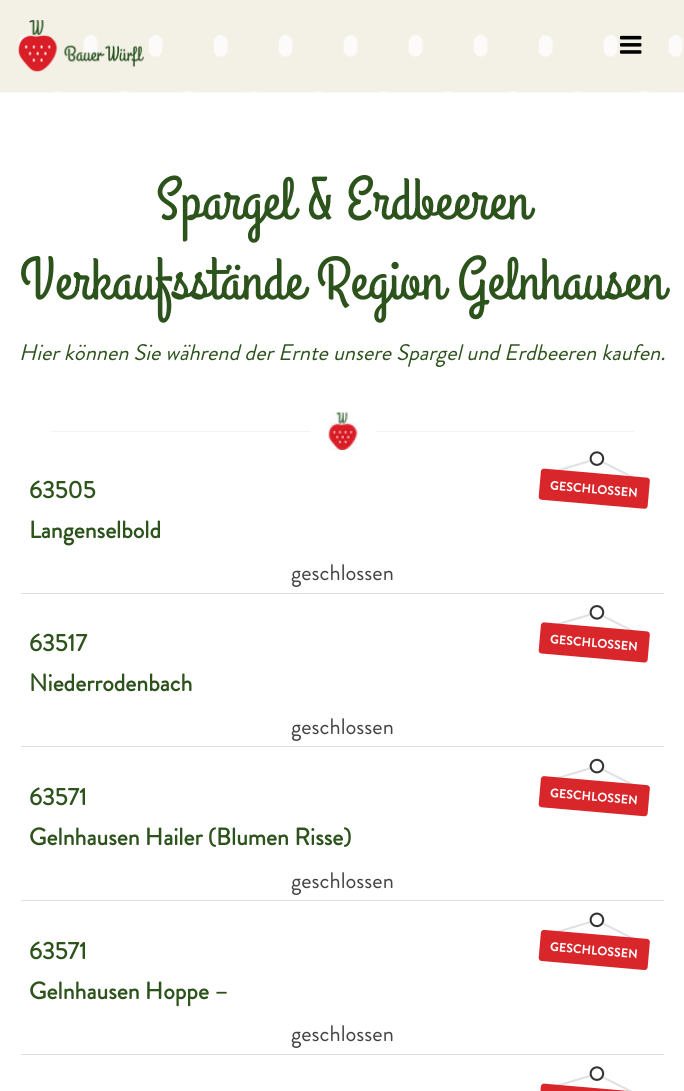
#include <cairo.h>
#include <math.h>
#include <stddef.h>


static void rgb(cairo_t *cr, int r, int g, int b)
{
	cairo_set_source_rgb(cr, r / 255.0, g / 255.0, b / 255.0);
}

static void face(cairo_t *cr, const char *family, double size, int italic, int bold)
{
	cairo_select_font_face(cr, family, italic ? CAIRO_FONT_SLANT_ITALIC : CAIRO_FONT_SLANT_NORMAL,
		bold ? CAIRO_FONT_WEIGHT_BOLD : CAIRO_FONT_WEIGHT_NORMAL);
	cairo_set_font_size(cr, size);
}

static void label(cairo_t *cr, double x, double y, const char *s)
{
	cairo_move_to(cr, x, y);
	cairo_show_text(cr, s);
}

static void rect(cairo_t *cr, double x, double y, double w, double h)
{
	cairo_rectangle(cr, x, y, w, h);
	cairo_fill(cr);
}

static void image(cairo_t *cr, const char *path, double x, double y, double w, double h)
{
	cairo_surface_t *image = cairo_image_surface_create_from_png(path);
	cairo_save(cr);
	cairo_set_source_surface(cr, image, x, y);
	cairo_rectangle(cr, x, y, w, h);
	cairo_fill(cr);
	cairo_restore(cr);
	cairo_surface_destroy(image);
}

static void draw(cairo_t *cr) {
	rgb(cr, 255, 255, 255);
	cairo_paint(cr);
	image(cr, "image0.png", 0, 0, 684, 93);
	image(cr, "image1.png", 18, 20, 126, 52);
	image(cr, "image2.png", 620, 35, 22, 19);
	face(cr, "Grand Hotel", 60, 0, 0);
	rgb(cr, 45, 83, 28);
	label(cr, 156, 218, "Spargel & Erdbeeren");
	label(cr, 20, 298, "Verkaufsstände Region Gelnhausen");
	face(cr, "Brandon Grotesque", 22.5, 1, 0);
	label(cr, 19, 360, "Hier können Sie während der Ernte unsere Spargel und Erdbeeren kaufen.");
	image(cr, "image3.png", 328, 412, 30, 38);
	rgb(cr, 243, 243, 243);
	rect(cr, 51, 431, 259, 1);
	rect(cr, 375, 431, 259, 1);
	rgb(cr, 223, 223, 223);
	rect(cr, 21, 593, 643, 1);
	face(cr, "Brandon Grotesque", 24, 0, 1);
	rgb(cr, 45, 83, 28);
	label(cr, 29, 498, "63505");
	image(cr, "image4.png", 538, 451, 112, 58);
	label(cr, 29, 538, "Langenselbold");
	face(cr, "Brandon Grotesque", 22.5, 0, 0);
	rgb(cr, 68, 68, 68);
	label(cr, 291, 580, "geschlossen");
	rgb(cr, 223, 223, 223);
	rect(cr, 21, 746, 643, 1);
	face(cr, "Brandon Grotesque", 24, 0, 1);
	rgb(cr, 45, 83, 28);
	label(cr, 29, 651, "63517");
	image(cr, "image5.png", 538, 605, 112, 58);
	label(cr, 29, 691, "Niederrodenbach");
	face(cr, "Brandon Grotesque", 22.5, 0, 0);
	rgb(cr, 68, 68, 68);
	label(cr, 291, 734, "geschlossen");
	rgb(cr, 223, 223, 223);
	rect(cr, 21, 900, 643, 1);
	face(cr, "Brandon Grotesque", 24, 0, 1);
	rgb(cr, 45, 83, 28);
	label(cr, 29, 805, "63571");
	image(cr, "image6.png", 538, 758, 112, 59);
	label(cr, 29, 845, "Gelnhausen Hailer (Blumen Risse)");
	face(cr, "Brandon Grotesque", 22.5, 0, 0);
	rgb(cr, 68, 68, 68);
	label(cr, 291, 888, "geschlossen");
	rgb(cr, 223, 223, 223);
	rect(cr, 21, 1054, 643, 1);
	face(cr, "Brandon Grotesque", 24, 0, 1);
	rgb(cr, 45, 83, 28);
	label(cr, 29, 959, "63571");
	image(cr, "image7.png", 538, 912, 112, 58);
	label(cr, 29, 999, "Gelnhausen Hoppe –");
	face(cr, "Brandon Grotesque", 22.5, 0, 0);
	rgb(cr, 68, 68, 68);
	label(cr, 291, 1041, "geschlossen");
	image(cr, "image8.png", 540, 1066, 92, 25);
}

int main(void) {
	cairo_surface_t *surface = cairo_image_surface_create(CAIRO_FORMAT_RGB24, 684, 1091);
	cairo_t *cr = cairo_create(surface);
	cairo_font_options_t *options = cairo_font_options_create();
	cairo_font_options_set_hint_metrics(options, CAIRO_HINT_METRICS_OFF);
	cairo_font_options_set_hint_style(options, CAIRO_HINT_STYLE_NONE);
	cairo_set_font_options(cr, options);
	cairo_set_miter_limit(cr, 4);
	draw(cr);
	cairo_surface_write_to_png(surface, "render.png");
	cairo_font_options_destroy(options);
	cairo_destroy(cr);
	cairo_surface_destroy(surface);
	return 0;
}
